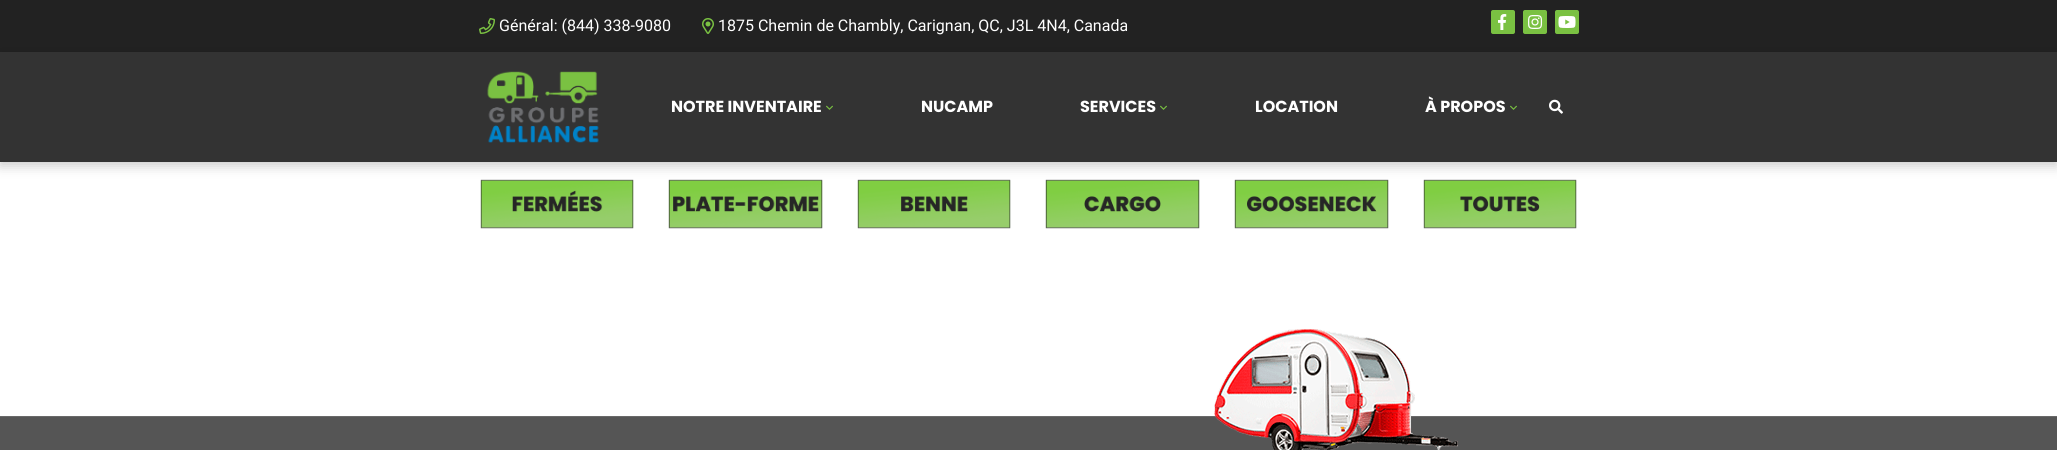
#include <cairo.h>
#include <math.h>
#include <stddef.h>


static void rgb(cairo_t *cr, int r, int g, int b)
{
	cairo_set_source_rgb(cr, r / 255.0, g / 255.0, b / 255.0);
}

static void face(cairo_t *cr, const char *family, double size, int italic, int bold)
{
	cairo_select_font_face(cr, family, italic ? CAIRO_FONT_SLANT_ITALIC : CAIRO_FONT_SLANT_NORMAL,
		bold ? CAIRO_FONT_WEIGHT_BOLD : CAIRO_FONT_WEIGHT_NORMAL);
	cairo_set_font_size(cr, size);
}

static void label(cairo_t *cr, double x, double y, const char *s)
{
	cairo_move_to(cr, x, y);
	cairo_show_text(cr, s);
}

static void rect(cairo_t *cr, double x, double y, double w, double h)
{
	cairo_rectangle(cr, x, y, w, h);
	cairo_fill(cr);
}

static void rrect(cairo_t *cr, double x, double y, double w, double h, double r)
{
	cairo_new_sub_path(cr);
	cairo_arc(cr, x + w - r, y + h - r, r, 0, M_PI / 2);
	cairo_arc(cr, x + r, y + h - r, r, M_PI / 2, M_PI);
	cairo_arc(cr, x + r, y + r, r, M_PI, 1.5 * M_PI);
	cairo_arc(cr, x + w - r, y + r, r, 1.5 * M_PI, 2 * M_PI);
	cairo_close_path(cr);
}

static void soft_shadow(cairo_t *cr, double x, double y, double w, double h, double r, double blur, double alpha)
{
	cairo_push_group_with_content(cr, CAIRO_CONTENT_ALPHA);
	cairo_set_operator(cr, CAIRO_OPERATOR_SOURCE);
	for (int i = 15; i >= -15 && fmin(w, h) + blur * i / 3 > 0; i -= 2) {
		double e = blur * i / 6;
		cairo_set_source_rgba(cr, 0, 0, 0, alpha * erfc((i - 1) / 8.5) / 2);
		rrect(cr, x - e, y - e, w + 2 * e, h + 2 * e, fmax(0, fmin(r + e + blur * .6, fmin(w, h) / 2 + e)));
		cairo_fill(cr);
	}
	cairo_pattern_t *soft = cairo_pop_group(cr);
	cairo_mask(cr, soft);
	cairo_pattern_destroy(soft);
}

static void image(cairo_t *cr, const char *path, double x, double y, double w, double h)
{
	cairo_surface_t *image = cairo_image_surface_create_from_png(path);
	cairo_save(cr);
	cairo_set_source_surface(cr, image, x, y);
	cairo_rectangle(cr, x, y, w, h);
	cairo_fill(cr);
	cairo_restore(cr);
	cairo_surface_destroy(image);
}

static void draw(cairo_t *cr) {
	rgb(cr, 255, 255, 255);
	cairo_paint(cr);
	rgb(cr, 51, 51, 51);
	rect(cr, 0, 52, 2057, 110);
	rgb(cr, 34, 34, 34);
	rect(cr, 0, 0, 2057, 52);
	image(cr, "image0.png", 479, 18, 16, 16);
	face(cr, "Roboto", 16, 0, 0);
	rgb(cr, 255, 255, 255);
	label(cr, 499, 31, "Général: (844) 338-9080");
	image(cr, "image1.png", 702, 18, 12, 16);
	label(cr, 718, 31, "1875 Chemin de Chambly, Carignan, QC, J3L 4N4, Canada");
	rgb(cr, 122, 193, 66);
	rrect(cr, 1491, 10, 24, 24, 2);
	cairo_fill(cr);
	image(cr, "image2.png", 1498, 14, 9, 16);
	rrect(cr, 1523, 10, 24, 24, 2);
	cairo_fill(cr);
	image(cr, "image3.png", 1528, 15, 15, 14);
	rrect(cr, 1555, 10, 24, 24, 2);
	cairo_fill(cr);
	image(cr, "image4.png", 1558, 16, 18, 12);
	image(cr, "image8.png", 480, 179, 154, 50);
	image(cr, "image9.png", 668, 179, 155, 50);
	image(cr, "image10.png", 857, 179, 154, 50);
	image(cr, "image11.png", 1045, 179, 155, 50);
	image(cr, "image12.png", 1234, 179, 155, 50);
	image(cr, "image13.png", 1423, 179, 154, 50);
	cairo_save(cr);
	cairo_set_fill_rule(cr, CAIRO_FILL_RULE_EVEN_ODD);
	cairo_new_path(cr);
	cairo_move_to(cr, 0, 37);
	cairo_line_to(cr, 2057, 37);
	cairo_line_to(cr, 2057, 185);
	cairo_line_to(cr, 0, 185);
	cairo_close_path(cr);
	cairo_move_to(cr, 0, 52);
	cairo_line_to(cr, 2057, 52);
	cairo_line_to(cr, 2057, 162);
	cairo_line_to(cr, 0, 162);
	cairo_close_path(cr);
	cairo_clip(cr);
	rgb(cr, 0, 0, 0);
	soft_shadow(cr, 0, 56, 2057, 110, 0, 6, 0.2);
	cairo_restore(cr);
	image(cr, "image5.png", 487, 71, 112, 72);
	face(cr, "Poppins", 16, 0, 1);
	rgb(cr, 255, 255, 255);
	label(cr, 671, 112, "NOTRE INVENTAIRE");
	image(cr, "image6.png", 826, 105, 7, 5);
	label(cr, 921, 112, "NUCAMP");
	label(cr, 1080, 112, "SERVICES");
	image(cr, "image6.png", 1160, 105, 7, 5);
	label(cr, 1255, 112, "LOCATION");
	label(cr, 1425, 112, "À PROPOS");
	image(cr, "image6.png", 1510, 105, 7, 5);
	image(cr, "image7.png", 1549, 99, 14, 15);
	rgb(cr, 85, 85, 85);
	rect(cr, 0, 417, 2057, 33);
	rgb(cr, 105, 105, 105);
	rect(cr, 0, 416, 2057, 1);
	image(cr, "image14.png", 1214, 329, 244, 121);
}

int main(void) {
	cairo_surface_t *surface = cairo_image_surface_create(CAIRO_FORMAT_RGB24, 2057, 450);
	cairo_t *cr = cairo_create(surface);
	cairo_font_options_t *options = cairo_font_options_create();
	cairo_font_options_set_hint_metrics(options, CAIRO_HINT_METRICS_OFF);
	cairo_font_options_set_hint_style(options, CAIRO_HINT_STYLE_NONE);
	cairo_set_font_options(cr, options);
	cairo_set_miter_limit(cr, 4);
	draw(cr);
	cairo_surface_write_to_png(surface, "render.png");
	cairo_font_options_destroy(options);
	cairo_destroy(cr);
	cairo_surface_destroy(surface);
	return 0;
}
